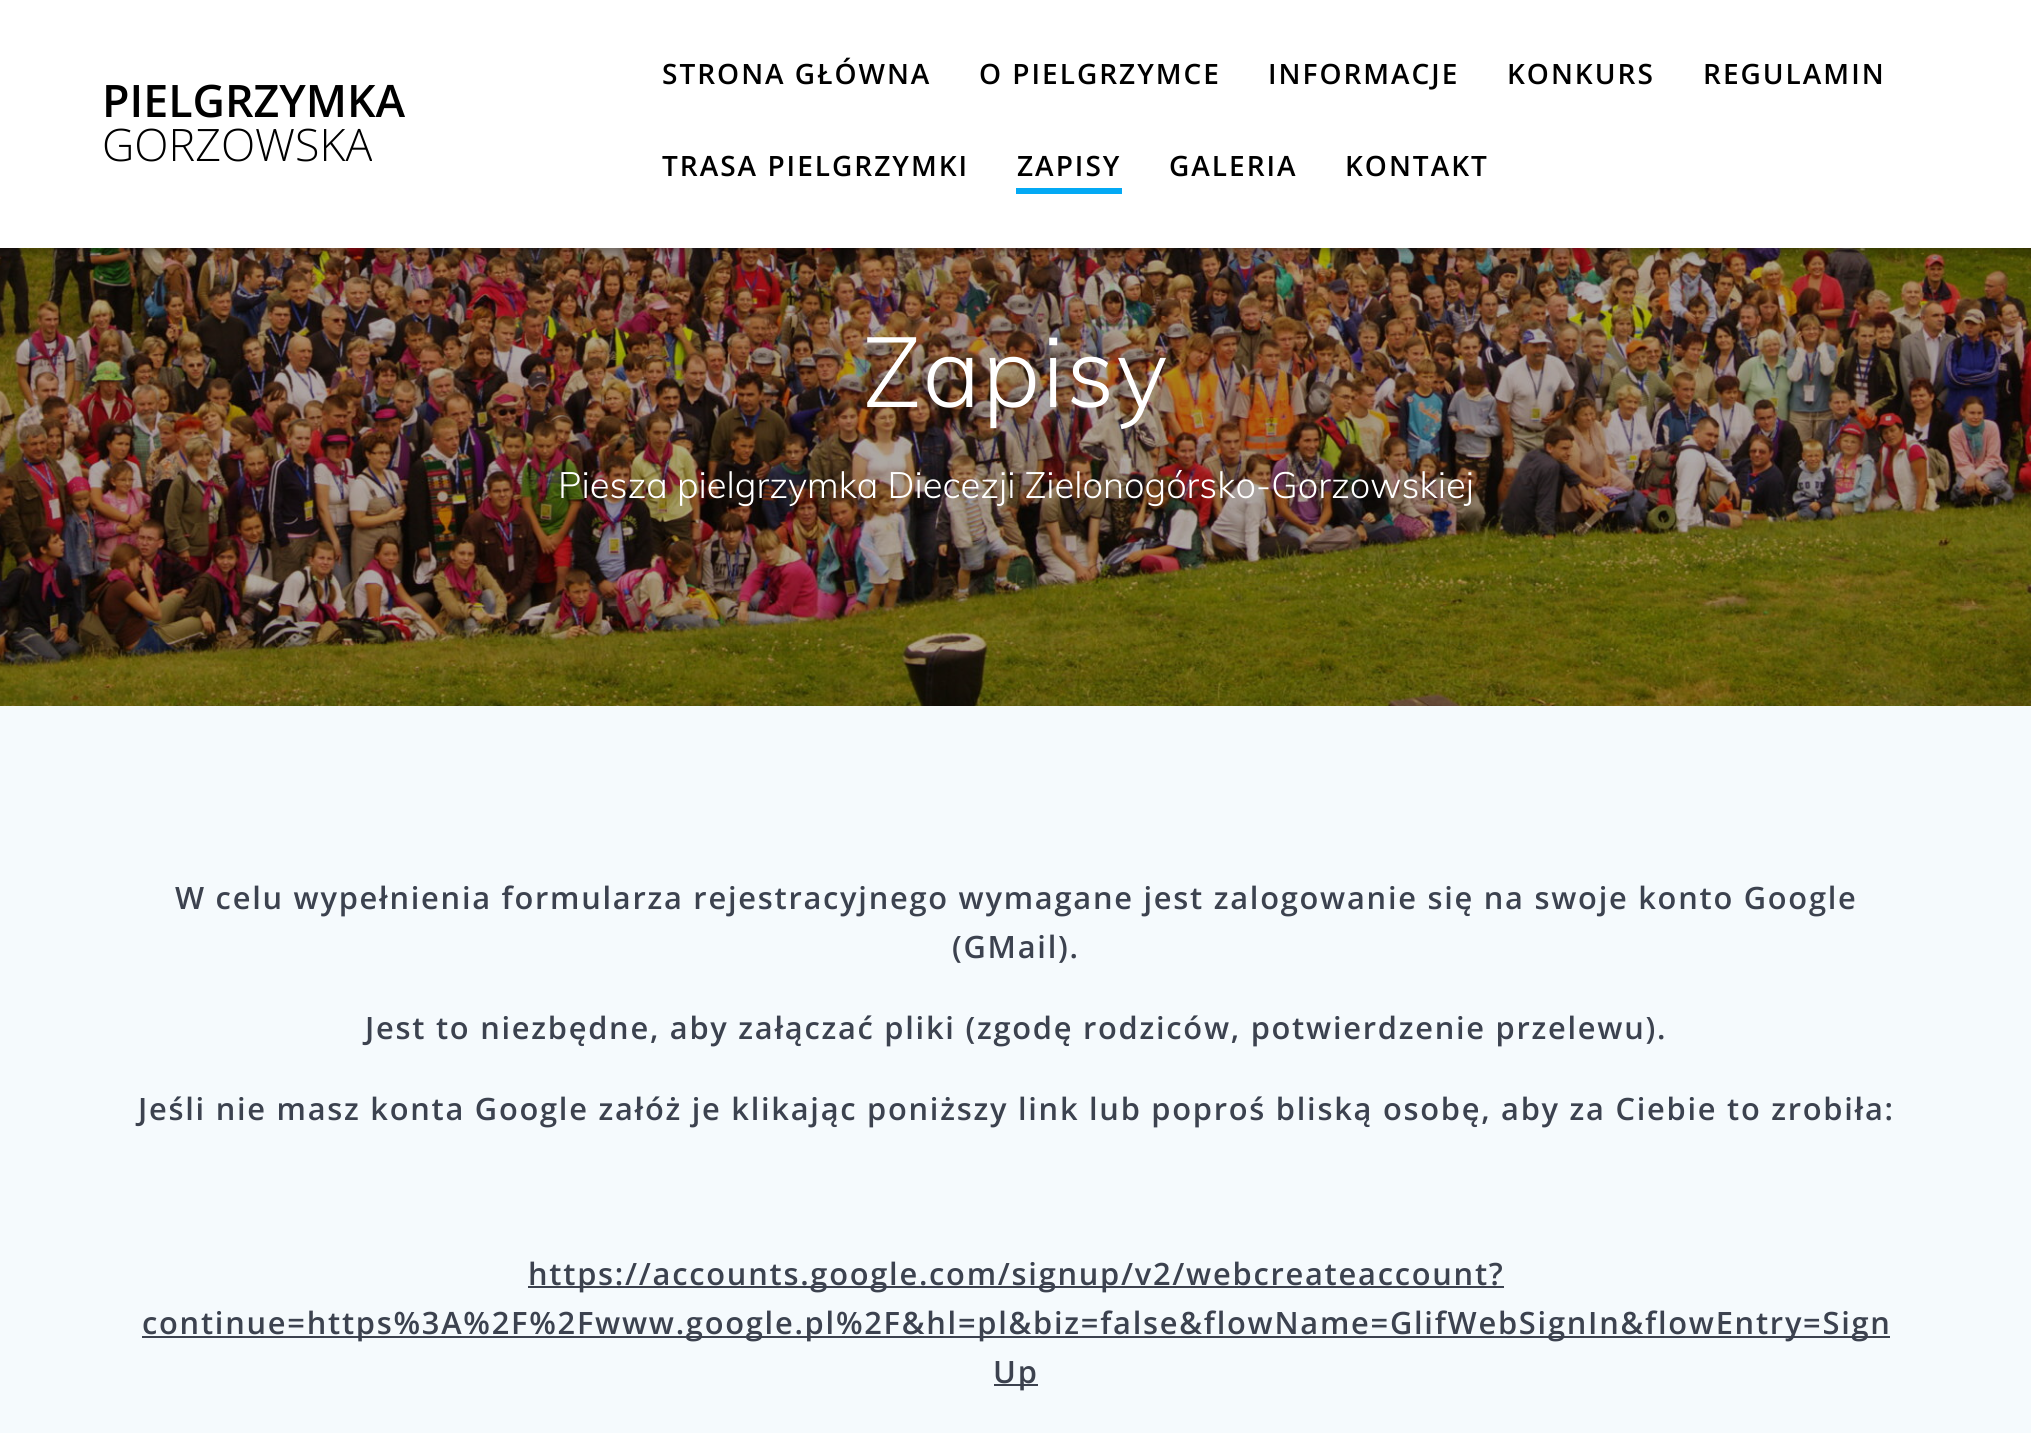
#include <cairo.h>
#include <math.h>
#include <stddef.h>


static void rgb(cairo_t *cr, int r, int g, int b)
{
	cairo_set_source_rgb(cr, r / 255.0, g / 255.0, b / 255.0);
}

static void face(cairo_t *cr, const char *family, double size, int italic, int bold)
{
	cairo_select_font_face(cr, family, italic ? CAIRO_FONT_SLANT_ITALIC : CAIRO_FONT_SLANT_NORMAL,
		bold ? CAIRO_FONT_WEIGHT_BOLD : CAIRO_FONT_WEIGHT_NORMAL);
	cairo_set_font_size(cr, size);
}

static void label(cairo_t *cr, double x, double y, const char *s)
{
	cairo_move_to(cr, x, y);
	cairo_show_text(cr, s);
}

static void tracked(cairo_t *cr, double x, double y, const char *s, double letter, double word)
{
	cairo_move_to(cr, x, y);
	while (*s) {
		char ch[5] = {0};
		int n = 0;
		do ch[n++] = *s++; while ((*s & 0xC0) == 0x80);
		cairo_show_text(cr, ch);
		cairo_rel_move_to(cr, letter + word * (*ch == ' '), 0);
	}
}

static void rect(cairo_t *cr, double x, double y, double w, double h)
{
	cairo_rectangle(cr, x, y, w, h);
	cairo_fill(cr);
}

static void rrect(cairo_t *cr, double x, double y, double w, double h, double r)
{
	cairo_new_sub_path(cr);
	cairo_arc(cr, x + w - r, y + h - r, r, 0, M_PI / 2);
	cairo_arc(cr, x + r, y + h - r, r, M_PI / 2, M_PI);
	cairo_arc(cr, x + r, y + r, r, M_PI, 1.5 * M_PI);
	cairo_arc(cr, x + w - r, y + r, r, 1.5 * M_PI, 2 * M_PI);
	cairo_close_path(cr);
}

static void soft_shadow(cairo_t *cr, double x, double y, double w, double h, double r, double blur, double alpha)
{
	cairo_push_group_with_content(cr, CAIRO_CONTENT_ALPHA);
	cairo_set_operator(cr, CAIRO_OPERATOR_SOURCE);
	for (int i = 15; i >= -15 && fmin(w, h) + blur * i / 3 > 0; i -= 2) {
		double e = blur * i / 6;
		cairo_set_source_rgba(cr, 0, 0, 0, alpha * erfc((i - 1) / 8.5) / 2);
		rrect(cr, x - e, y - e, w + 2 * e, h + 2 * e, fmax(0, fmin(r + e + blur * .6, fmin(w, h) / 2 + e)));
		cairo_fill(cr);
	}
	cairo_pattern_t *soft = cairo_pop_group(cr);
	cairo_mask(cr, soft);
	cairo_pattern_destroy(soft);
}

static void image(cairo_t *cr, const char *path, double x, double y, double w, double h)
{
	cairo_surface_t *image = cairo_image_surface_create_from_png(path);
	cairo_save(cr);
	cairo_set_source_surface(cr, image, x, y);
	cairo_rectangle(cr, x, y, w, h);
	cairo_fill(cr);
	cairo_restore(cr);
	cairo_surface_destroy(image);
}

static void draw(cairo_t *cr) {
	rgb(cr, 255, 255, 255);
	cairo_paint(cr);
	image(cr, "image0.png", 0, 248, 2031, 458);
	image(cr, "image1.png", 695, 248, 1316, 439);
	rgb(cr, 0, 0, 0);
	soft_shadow(cr, -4, -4, 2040, 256, 0, 5, 0.33);
	rgb(cr, 255, 255, 255);
	rect(cr, 0, 0, 2031, 248);
	face(cr, "Open Sans SemiBold", 44.75, 0, 0);
	rgb(cr, 0, 0, 0);
	label(cr, 102, 117, "PIELGRZYMKA");
	face(cr, "Open Sans Light", 44.75, 0, 0);
	label(cr, 102, 161, "GORZOWSKA");
	face(cr, "Open Sans SemiBold", 28, 0, 0);
	tracked(cr, 662, 84, "STRONA GŁÓWNA", 2, 0);
	tracked(cr, 979, 84, "O PIELGRZYMCE", 2, 0);
	tracked(cr, 1268, 84, "INFORMACJE", 2, 0);
	tracked(cr, 1507, 84, "KONKURS", 2, 0);
	tracked(cr, 1703, 84, "REGULAMIN", 2, 0);
	tracked(cr, 662, 176, "TRASA PIELGRZYMKI", 2, 0);
	rgb(cr, 3, 169, 244);
	rect(cr, 1016, 188, 106, 6);
	rgb(cr, 0, 0, 0);
	tracked(cr, 1017, 176, "ZAPISY", 2, 0);
	tracked(cr, 1169, 176, "GALERIA", 2, 0);
	tracked(cr, 1345, 176, "KONTAKT", 2, 0);
	face(cr, "Muli Light", 98, 0, 0);
	rgb(cr, 255, 255, 255);
	tracked(cr, 863, 407, "Zapisy", 1.75, 0);
	face(cr, "Muli Light", 36.4, 0, 0);
	label(cr, 558, 498, "Piesza pielgrzymka Diecezji Zielonogórsko-Gorzowskiej");
	rgb(cr, 245, 250, 253);
	rect(cr, 0, 706, 2031, 727);
	face(cr, "Open Sans SemiBold", 30.8, 0, 0);
	rgb(cr, 60, 66, 79);
	tracked(cr, 175, 909, "W celu wypełnienia formularza rejestracyjnego wymagane jest zalogowanie się na swoje konto Google", 1.75, 0);
	tracked(cr, 952, 958, "(GMail).", 1.75, 0);
	tracked(cr, 365, 1039, "Jest to niezbędne, aby załączać pliki (zgodę rodziców, potwierdzenie przelewu).", 1.75, 0);
	tracked(cr, 138, 1120, "Jeśli nie masz konta Google załóż je klikając poniższy link lub poproś bliską osobę, aby za Ciebie to zrobiła:", 1.75, 0);
	rect(cr, 528, 1286, 976, 2);
	tracked(cr, 528, 1285, "https://accounts.google.com/signup/v2/webcreateaccount?", 1.75, 0);
	rect(cr, 142, 1336, 1748, 2);
	tracked(cr, 142, 1334, "continue=https%3A%2F%2Fwww.google.pl%2F&hl=pl&biz=false&flowName=GlifWebSignIn&flowEntry=Sign", 1.75, 0);
	rect(cr, 994, 1384, 44, 2);
	tracked(cr, 993, 1383, "Up", 1.75, 0);
}

int main(void) {
	cairo_surface_t *surface = cairo_image_surface_create(CAIRO_FORMAT_RGB24, 2031, 1433);
	cairo_t *cr = cairo_create(surface);
	cairo_font_options_t *options = cairo_font_options_create();
	cairo_font_options_set_hint_metrics(options, CAIRO_HINT_METRICS_OFF);
	cairo_font_options_set_hint_style(options, CAIRO_HINT_STYLE_NONE);
	cairo_set_font_options(cr, options);
	cairo_set_miter_limit(cr, 4);
	draw(cr);
	cairo_surface_write_to_png(surface, "render.png");
	cairo_font_options_destroy(options);
	cairo_destroy(cr);
	cairo_surface_destroy(surface);
	return 0;
}
